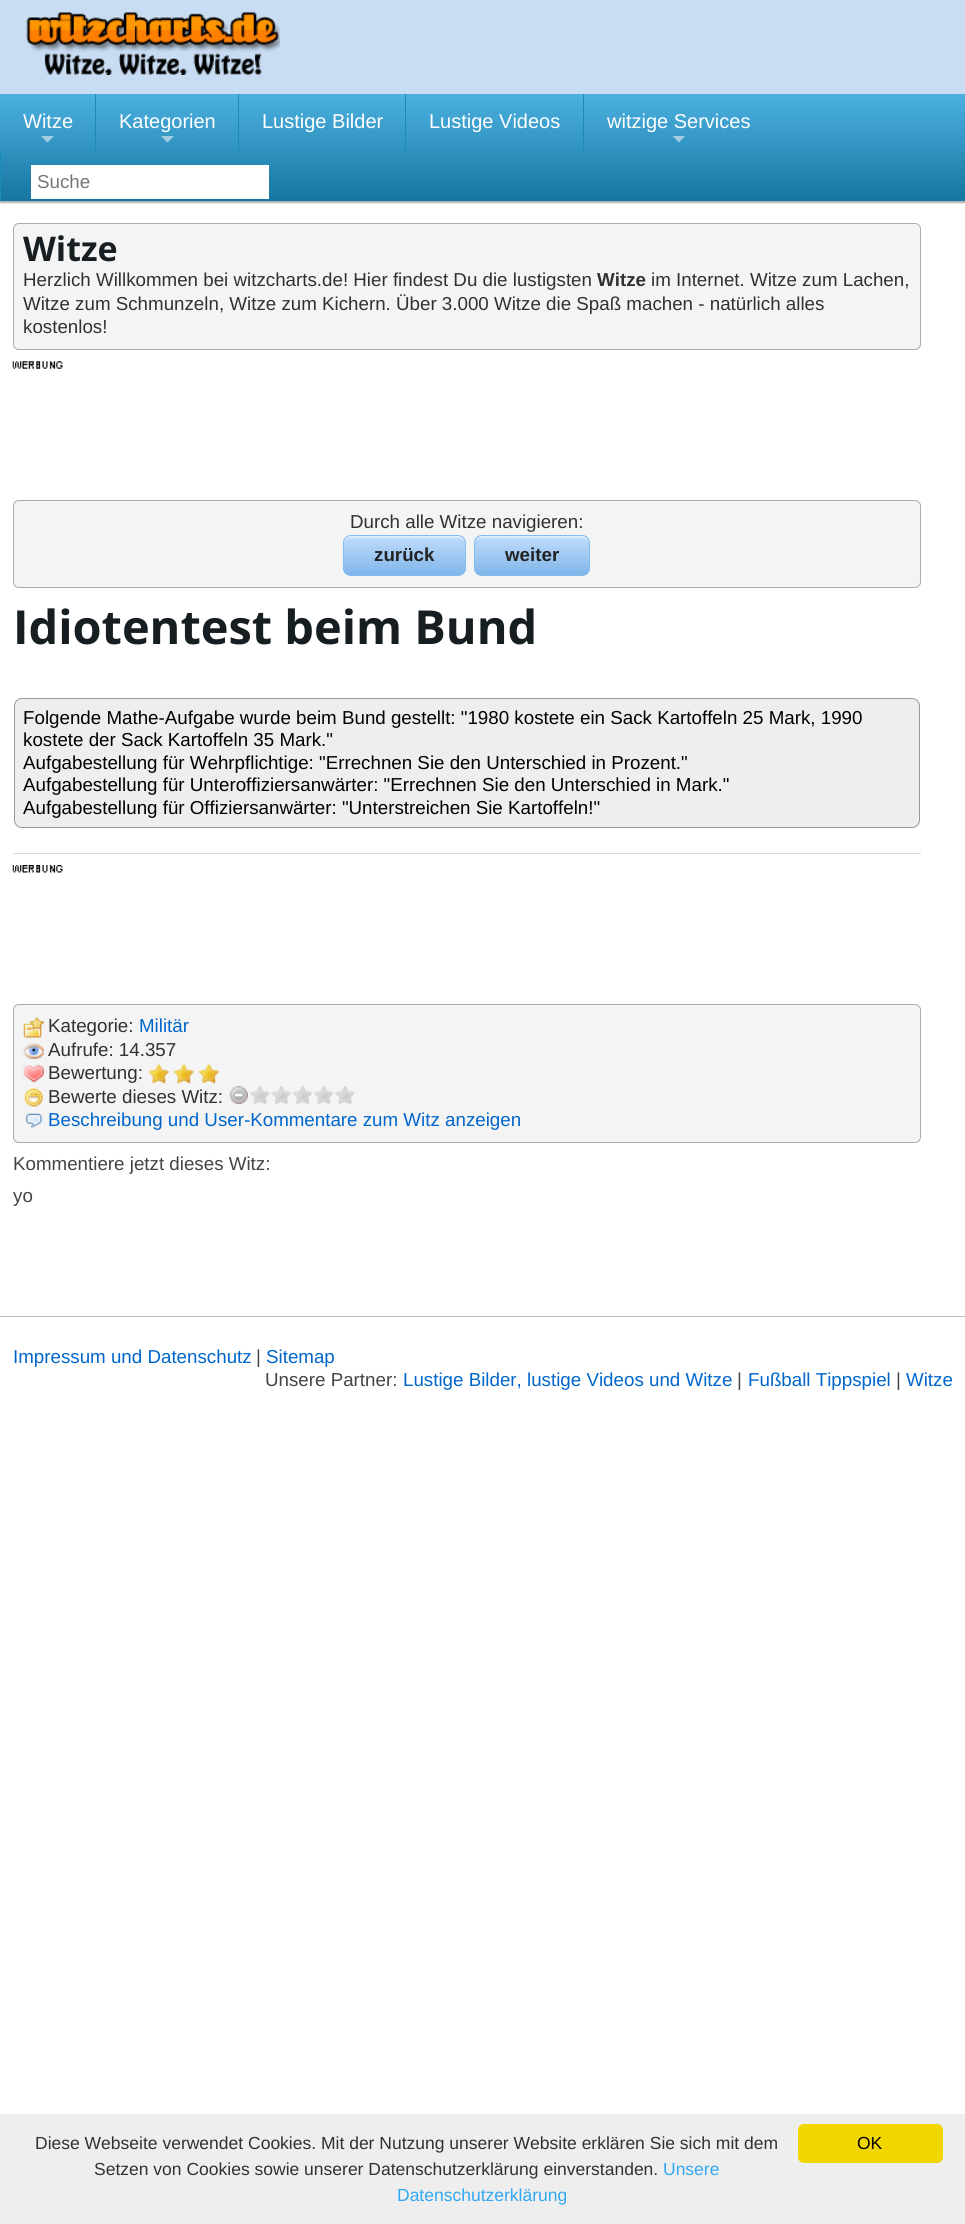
#include <cairo.h>
#include <math.h>
#include <stddef.h>


static void rgb(cairo_t *cr, int r, int g, int b)
{
	cairo_set_source_rgb(cr, r / 255.0, g / 255.0, b / 255.0);
}

static void face(cairo_t *cr, const char *family, double size, int italic, int bold)
{
	cairo_select_font_face(cr, family, italic ? CAIRO_FONT_SLANT_ITALIC : CAIRO_FONT_SLANT_NORMAL,
		bold ? CAIRO_FONT_WEIGHT_BOLD : CAIRO_FONT_WEIGHT_NORMAL);
	cairo_set_font_size(cr, size);
}

static void label(cairo_t *cr, double x, double y, const char *s)
{
	cairo_move_to(cr, x, y);
	cairo_show_text(cr, s);
}

static void rect(cairo_t *cr, double x, double y, double w, double h)
{
	cairo_rectangle(cr, x, y, w, h);
	cairo_fill(cr);
}

static void rrect(cairo_t *cr, double x, double y, double w, double h, double r)
{
	cairo_new_sub_path(cr);
	cairo_arc(cr, x + w - r, y + h - r, r, 0, M_PI / 2);
	cairo_arc(cr, x + r, y + h - r, r, M_PI / 2, M_PI);
	cairo_arc(cr, x + r, y + r, r, M_PI, 1.5 * M_PI);
	cairo_arc(cr, x + w - r, y + r, r, 1.5 * M_PI, 2 * M_PI);
	cairo_close_path(cr);
}

static void soft_shadow(cairo_t *cr, double x, double y, double w, double h, double r, double blur, double alpha)
{
	cairo_push_group_with_content(cr, CAIRO_CONTENT_ALPHA);
	cairo_set_operator(cr, CAIRO_OPERATOR_SOURCE);
	for (int i = 15; i >= -15 && fmin(w, h) + blur * i / 3 > 0; i -= 2) {
		double e = blur * i / 6;
		cairo_set_source_rgba(cr, 0, 0, 0, alpha * erfc((i - 1) / 8.5) / 2);
		rrect(cr, x - e, y - e, w + 2 * e, h + 2 * e, fmax(0, fmin(r + e + blur * .6, fmin(w, h) / 2 + e)));
		cairo_fill(cr);
	}
	cairo_pattern_t *soft = cairo_pop_group(cr);
	cairo_mask(cr, soft);
	cairo_pattern_destroy(soft);
}

static void image(cairo_t *cr, const char *path, double x, double y, double w, double h)
{
	cairo_surface_t *image = cairo_image_surface_create_from_png(path);
	cairo_save(cr);
	cairo_set_source_surface(cr, image, x, y);
	cairo_rectangle(cr, x, y, w, h);
	cairo_fill(cr);
	cairo_restore(cr);
	cairo_surface_destroy(image);
}

static void draw(cairo_t *cr) {
	cairo_pattern_t *gradient;
	rgb(cr, 255, 255, 255);
	cairo_paint(cr);
	rgb(cr, 0, 0, 0);
	soft_shadow(cr, 0, 95, 965, 108, 0, 0.5, 0.3);
	rgb(cr, 200, 221, 243);
	rect(cr, 0, 0, 965, 94);
	image(cr, "image0.png", 25, 12, 255, 63);
	gradient = cairo_pattern_create_linear(483, 94, 483, 201);
	cairo_pattern_add_color_stop_rgba(gradient, 0, 0.298, 0.694, 0.878, 1);
	cairo_pattern_add_color_stop_rgba(gradient, 1, 0.086, 0.459, 0.631, 1);
	cairo_set_source(cr, gradient);
	cairo_pattern_destroy(gradient);
	rect(cr, 0, 94, 965, 107);
	face(cr, "Liberation Sans", 20, 0, 0);
	rgb(cr, 255, 255, 255);
	label(cr, 23, 128, "Witze");
	rgb(cr, 164, 205, 225);
	cairo_new_path(cr);
	cairo_move_to(cr, 41, 136);
	cairo_line_to(cr, 54, 136);
	cairo_line_to(cr, 47.5, 142.5);
	cairo_close_path(cr);
	cairo_fill(cr);
	rgb(cr, 26, 139, 185);
	rect(cr, 95, 94, 1, 57);
	rgb(cr, 255, 255, 255);
	label(cr, 119, 128, "Kategorien");
	rgb(cr, 164, 205, 225);
	cairo_new_path(cr);
	cairo_move_to(cr, 161, 136);
	cairo_line_to(cr, 174, 136);
	cairo_line_to(cr, 167.5, 142.5);
	cairo_close_path(cr);
	cairo_fill(cr);
	rgb(cr, 26, 139, 185);
	rect(cr, 238, 94, 1, 57);
	rgb(cr, 255, 255, 255);
	label(cr, 262, 128, "Lustige Bilder");
	rgb(cr, 26, 139, 185);
	rect(cr, 405, 94, 1, 57);
	rgb(cr, 255, 255, 255);
	label(cr, 429, 128, "Lustige Videos");
	rgb(cr, 26, 139, 185);
	rect(cr, 583, 94, 1, 57);
	rgb(cr, 255, 255, 255);
	label(cr, 607, 128, "witzige Services");
	rgb(cr, 164, 205, 225);
	cairo_new_path(cr);
	cairo_move_to(cr, 672.5, 136);
	cairo_line_to(cr, 685, 136);
	cairo_line_to(cr, 679, 142.5);
	cairo_close_path(cr);
	cairo_fill(cr);
	rgb(cr, 26, 139, 185);
	rect(cr, 0, 151, 1, 50);
	rgb(cr, 255, 255, 255);
	rect(cr, 31, 165, 238, 34);
	face(cr, "Liberation Sans", 18.75, 0, 0);
	rgb(cr, 117, 117, 117);
	label(cr, 37, 188, "Suche");
	rgb(cr, 244, 244, 244);
	rrect(cr, 13.5, 223.5, 907, 126, 5.5);
	cairo_fill_preserve(cr);
	rgb(cr, 171, 171, 171);
	cairo_set_line_width(cr, 1);
	cairo_stroke(cr);
	face(cr, "Open Sans", 34, 0, 1);
	rgb(cr, 22, 30, 33);
	label(cr, 23, 261, "Witze");
	face(cr, "Liberation Sans", 18.75, 0, 0);
	rgb(cr, 49, 49, 49);
	label(cr, 23, 286, "Herzlich Willkommen bei witzcharts.de! Hier findest Du die lustigsten");
	face(cr, "Liberation Sans", 18.75, 0, 1);
	label(cr, 597, 286, "Witze");
	face(cr, "Liberation Sans", 18.75, 0, 0);
	label(cr, 651, 286, "im Internet. Witze zum Lachen,");
	label(cr, 23, 310, "Witze zum Schmunzeln, Witze zum Kichern. Über 3.000 Witze die Spaß machen - natürlich alles");
	label(cr, 23, 333, "kostenlos!");
	image(cr, "image1.png", 12, 361, 51, 8);
	rgb(cr, 244, 244, 244);
	rrect(cr, 13.5, 500.5, 907, 87, 5.5);
	cairo_fill_preserve(cr);
	rgb(cr, 171, 171, 171);
	cairo_stroke(cr);
	rgb(cr, 49, 49, 49);
	label(cr, 350, 528, "Durch alle Witze navigieren:");
	cairo_save(cr);
	rrect(cr, 343, 535, 123, 41, 8);
	cairo_clip(cr);
	gradient = cairo_pattern_create_linear(344, 536, 344, 575);
	cairo_pattern_add_color_stop_rgba(gradient, 0.05, 0.741, 0.859, 0.98, 1);
	cairo_pattern_add_color_stop_rgba(gradient, 1, 0.502, 0.71, 0.918, 1);
	cairo_set_source(cr, gradient);
	cairo_pattern_destroy(gradient);
	rect(cr, 343, 536, 123, 39);
	cairo_restore(cr);
	rgb(cr, 220, 236, 251);
	cairo_new_path(cr);
	cairo_move_to(cr, 350, 538);
	cairo_line_to(cr, 459, 538);
	cairo_curve_to(cr, 462, 538, 465, 540, 465, 544);
	cairo_line_to(cr, 465, 542);
	cairo_curve_to(cr, 465, 539, 462, 536, 459, 536);
	cairo_line_to(cr, 350, 536);
	cairo_curve_to(cr, 347, 536, 344, 539, 344, 542);
	cairo_line_to(cr, 344, 544);
	cairo_curve_to(cr, 344, 540, 347, 538, 350, 538);
	cairo_close_path(cr);
	cairo_fill(cr);
	rrect(cr, 343.5, 535.5, 122, 40, 7.5);
	rgb(cr, 132, 187, 243);
	cairo_stroke(cr);
	face(cr, "Liberation Sans", 18.75, 0, 1);
	rgb(cr, 34, 34, 34);
	label(cr, 374, 561, "zurück");
	cairo_save(cr);
	rrect(cr, 474, 535, 116, 41, 8);
	cairo_clip(cr);
	gradient = cairo_pattern_create_linear(475, 536, 475, 575);
	cairo_pattern_add_color_stop_rgba(gradient, 0.05, 0.741, 0.859, 0.98, 1);
	cairo_pattern_add_color_stop_rgba(gradient, 1, 0.502, 0.71, 0.918, 1);
	cairo_set_source(cr, gradient);
	cairo_pattern_destroy(gradient);
	rect(cr, 474, 536, 116, 39);
	cairo_restore(cr);
	rgb(cr, 220, 236, 251);
	cairo_new_path(cr);
	cairo_move_to(cr, 481, 538);
	cairo_line_to(cr, 582, 538);
	cairo_curve_to(cr, 586, 538, 589, 540, 589, 544);
	cairo_curve_to(cr, 589, 532, 575, 536, 566, 536);
	cairo_line_to(cr, 498, 536);
	cairo_curve_to(cr, 489, 536, 475, 532, 475, 544);
	cairo_curve_to(cr, 475, 540, 478, 538, 481, 538);
	cairo_close_path(cr);
	cairo_fill(cr);
	rrect(cr, 474.5, 535.5, 115, 40, 7.5);
	rgb(cr, 132, 187, 243);
	cairo_stroke(cr);
	rgb(cr, 34, 34, 34);
	label(cr, 505, 561, "weiter");
	face(cr, "Open Sans", 46.9, 0, 1);
	rgb(cr, 22, 30, 33);
	label(cr, 13, 644, "Idiotentest beim Bund");
	rgb(cr, 238, 238, 238);
	rrect(cr, 14.5, 698.5, 905, 129, 7.5);
	cairo_fill_preserve(cr);
	rgb(cr, 153, 153, 153);
	cairo_stroke(cr);
	face(cr, "Liberation Sans", 18.75, 0, 0);
	rgb(cr, 0, 0, 0);
	label(cr, 23, 724, "Folgende Mathe-Aufgabe wurde beim Bund gestellt: \"1980 kostete ein Sack Kartoffeln 25 Mark, 1990");
	label(cr, 23, 746, "kostete der Sack Kartoffeln 35 Mark.\"");
	label(cr, 23, 769, "Aufgabestellung für Wehrpflichtige: \"Errechnen Sie den Unterschied in Prozent.\"");
	label(cr, 23, 791, "Aufgabestellung für Unteroffiziersanwärter: \"Errechnen Sie den Unterschied in Mark.\"");
	label(cr, 23, 814, "Aufgabestellung für Offiziersanwärter: \"Unterstreichen Sie Kartoffeln!\"");
	rgb(cr, 216, 216, 216);
	rect(cr, 13, 853, 908, 1);
	image(cr, "image2.png", 12, 865, 51, 8);
	rgb(cr, 244, 244, 244);
	rrect(cr, 13.5, 1004.5, 907, 138, 5.5);
	cairo_fill_preserve(cr);
	rgb(cr, 171, 171, 171);
	cairo_stroke(cr);
	image(cr, "image3.png", 23, 1017, 21, 21);
	rgb(cr, 49, 49, 49);
	label(cr, 48, 1032, "Kategorie:");
	rgb(cr, 0, 102, 204);
	label(cr, 139, 1032, "Militär");
	image(cr, "image4.png", 23, 1043, 21, 16);
	rgb(cr, 49, 49, 49);
	label(cr, 48, 1056, "Aufrufe: 14.357");
	image(cr, "image5.png", 23, 1064, 21, 19);
	label(cr, 48, 1079, "Bewertung:");
	image(cr, "image6.png", 148, 1063, 21, 21);
	image(cr, "image7.png", 173, 1063, 21, 21);
	image(cr, "image7.png", 198, 1063, 21, 21);
	image(cr, "image8.png", 24, 1088, 19, 19);
	label(cr, 48, 1103, "Bewerte dieses Witz:");
	image(cr, "image9.png", 229, 1086, 19, 18);
	image(cr, "image10.png", 230, 1086, 18, 18);
	image(cr, "image11.png", 250, 1085, 20, 19);
	image(cr, "image12.png", 271, 1086, 21, 18);
	image(cr, "image13.png", 293, 1085, 20, 19);
	image(cr, "image14.png", 314, 1085, 20, 19);
	image(cr, "image11.png", 335, 1085, 20, 19);
	image(cr, "image15.png", 25, 1113, 18, 15);
	rgb(cr, 0, 102, 204);
	label(cr, 48, 1126, "Beschreibung und User-Kommentare zum Witz anzeigen");
	rgb(cr, 68, 68, 68);
	label(cr, 13, 1170, "Kommentiere jetzt dieses Witz:");
	label(cr, 13, 1202, "yo");
	rgb(cr, 187, 187, 187);
	rect(cr, 0, 1316, 965, 1);
	rgb(cr, 0, 102, 204);
	label(cr, 13, 1363, "Impressum und Datenschutz");
	rgb(cr, 68, 68, 68);
	label(cr, 256, 1363, "|");
	rgb(cr, 0, 102, 204);
	label(cr, 266, 1363, "Sitemap");
	rgb(cr, 68, 68, 68);
	label(cr, 265, 1386, "Unsere Partner:");
	rgb(cr, 0, 102, 204);
	label(cr, 403, 1386, "Lustige Bilder, lustige Videos und Witze");
	rgb(cr, 68, 68, 68);
	label(cr, 737, 1386, "|");
	rgb(cr, 0, 102, 204);
	label(cr, 748, 1386, "Fußball Tippspiel");
	rgb(cr, 68, 68, 68);
	label(cr, 896, 1386, "|");
	rgb(cr, 0, 102, 204);
	label(cr, 906, 1386, "Witze");
	rgb(cr, 238, 238, 238);
	rect(cr, 0, 2114, 965, 110);
	face(cr, "Liberation Sans", 17.5, 0, 0);
	rgb(cr, 49, 49, 49);
	label(cr, 35, 2149, "Diese Webseite verwendet Cookies. Mit der Nutzung unserer Website erklären Sie sich mit dem");
	label(cr, 94, 2175, "Setzen von Cookies sowie unserer Datenschutzerklärung einverstanden.");
	rgb(cr, 49, 168, 240);
	label(cr, 663, 2175, "Unsere");
	label(cr, 397, 2201, "Datenschutzerklärung");
	rgb(cr, 241, 214, 0);
	rrect(cr, 798, 2124, 145, 39, 6);
	cairo_fill(cr);
	rgb(cr, 0, 0, 0);
	label(cr, 857, 2149, "OK");
}

int main(void) {
	cairo_surface_t *surface = cairo_image_surface_create(CAIRO_FORMAT_RGB24, 965, 2224);
	cairo_t *cr = cairo_create(surface);
	cairo_font_options_t *options = cairo_font_options_create();
	cairo_font_options_set_hint_metrics(options, CAIRO_HINT_METRICS_OFF);
	cairo_font_options_set_hint_style(options, CAIRO_HINT_STYLE_NONE);
	cairo_set_font_options(cr, options);
	cairo_set_miter_limit(cr, 4);
	draw(cr);
	cairo_surface_write_to_png(surface, "render.png");
	cairo_font_options_destroy(options);
	cairo_destroy(cr);
	cairo_surface_destroy(surface);
	return 0;
}
